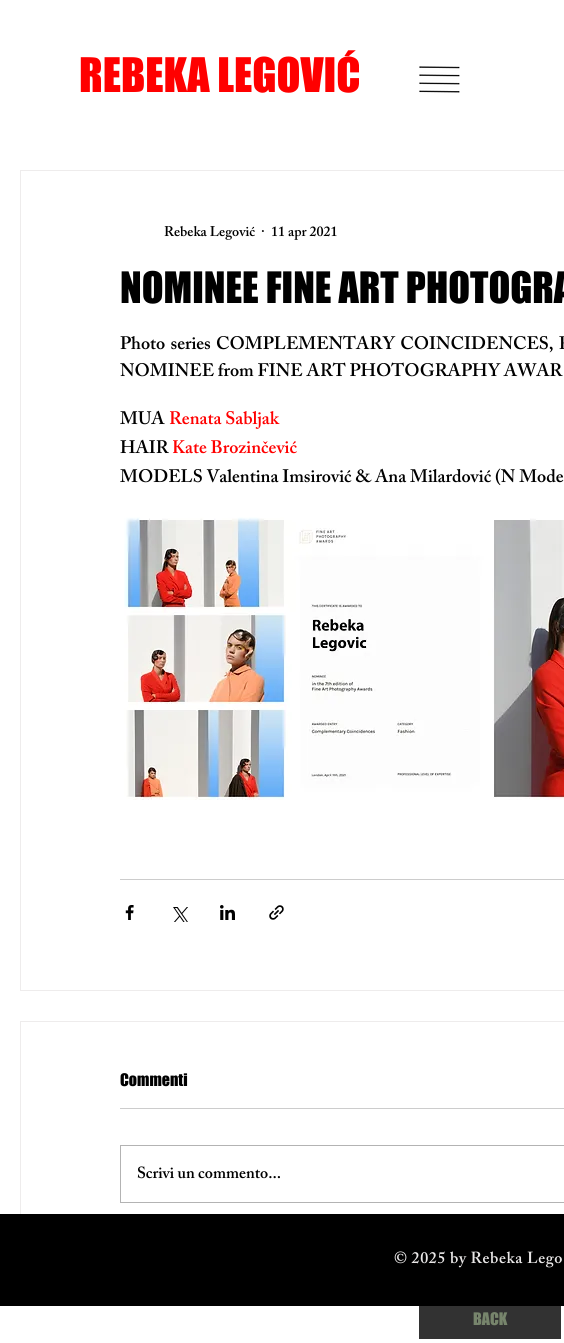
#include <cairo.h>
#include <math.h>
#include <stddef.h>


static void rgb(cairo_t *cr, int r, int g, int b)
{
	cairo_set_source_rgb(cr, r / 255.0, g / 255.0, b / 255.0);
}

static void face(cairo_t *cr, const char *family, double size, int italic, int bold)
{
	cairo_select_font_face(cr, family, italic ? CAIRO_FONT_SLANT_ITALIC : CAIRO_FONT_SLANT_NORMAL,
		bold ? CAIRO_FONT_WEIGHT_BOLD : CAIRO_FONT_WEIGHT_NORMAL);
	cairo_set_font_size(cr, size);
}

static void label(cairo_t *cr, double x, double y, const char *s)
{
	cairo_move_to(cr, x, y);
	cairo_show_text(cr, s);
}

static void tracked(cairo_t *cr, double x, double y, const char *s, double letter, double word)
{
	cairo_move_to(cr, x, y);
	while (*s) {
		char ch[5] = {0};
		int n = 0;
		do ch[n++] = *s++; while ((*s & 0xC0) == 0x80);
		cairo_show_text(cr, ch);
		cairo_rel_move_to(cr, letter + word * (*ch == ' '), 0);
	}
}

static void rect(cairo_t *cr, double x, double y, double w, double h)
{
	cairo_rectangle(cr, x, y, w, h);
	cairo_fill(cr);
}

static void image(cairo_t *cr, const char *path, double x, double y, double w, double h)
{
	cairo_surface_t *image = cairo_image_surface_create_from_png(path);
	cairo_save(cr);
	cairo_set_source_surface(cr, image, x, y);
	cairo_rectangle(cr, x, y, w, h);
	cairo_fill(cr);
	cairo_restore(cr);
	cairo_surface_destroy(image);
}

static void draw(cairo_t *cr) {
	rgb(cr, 255, 255, 255);
	cairo_paint(cr);
	face(cr, "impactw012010", 44, 0, 0);
	rgb(cr, 255, 0, 0);
	label(cr, 79, 92, "REBEKA LEGOVIĆ");
	image(cr, "image0.png", 419, 66, 41, 27);
	cairo_rectangle(cr, 20.5, 170.5, 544, 820);
	rgb(cr, 238, 236, 236);
	cairo_set_line_width(cr, 1);
	cairo_stroke(cr);
	face(cr, "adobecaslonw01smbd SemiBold", 14, 0, 0);
	rgb(cr, 0, 0, 0);
	label(cr, 164, 236, "Rebeka Legović");
	label(cr, 261, 236, "·");
	label(cr, 271, 236, "11 apr 2021");
	face(cr, "impactw012010", 40, 0, 0);
	label(cr, 120, 303, "NOMINEE FINE ART PHOTOGRA");
	face(cr, "adobecaslonw01smbd SemiBold", 18, 0, 0);
	tracked(cr, 120, 349, "Photo series COMPLEMENTARY COINCIDENCES, F", 0, 1.5);
	label(cr, 120, 376, "NOMINEE from FINE ART PHOTOGRAPHY AWAR");
	label(cr, 120, 424, "MUA");
	rgb(cr, 255, 0, 0);
	label(cr, 169, 424, "Renata Sabljak");
	rgb(cr, 0, 0, 0);
	label(cr, 120, 453, "HAIR");
	rgb(cr, 255, 0, 0);
	label(cr, 172, 453, "Kate Brozinčević");
	rgb(cr, 0, 0, 0);
	label(cr, 120, 482, "MODELS Valentina Imsirović & Ana Milardović (N Mode");
	image(cr, "image1.png", 124, 517, 440, 283);
	rgb(cr, 204, 204, 204);
	rect(cr, 120, 879, 444, 1);
	image(cr, "image2.png", 125, 905, 9, 15);
	image(cr, "image3.png", 173, 907, 15, 15);
	image(cr, "image4.png", 220, 905, 15, 15);
	image(cr, "image5.png", 269, 905, 15, 15);
	cairo_rectangle(cr, 20.5, 1021.5, 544, 235);
	rgb(cr, 238, 236, 236);
	cairo_stroke(cr);
	face(cr, "impactw012010", 16, 0, 0);
	rgb(cr, 0, 0, 0);
	label(cr, 120, 1086, "Commenti");
	rgb(cr, 204, 204, 204);
	rect(cr, 120, 1108, 444, 1);
	cairo_rectangle(cr, 120.5, 1145.5, 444, 57);
	rgb(cr, 179, 179, 179);
	cairo_stroke(cr);
	face(cr, "adobecaslonw01smbd SemiBold", 16, 0, 0);
	rgb(cr, 0, 0, 0);
	label(cr, 137, 1178, "Scrivi un commento...");
	rgb(cr, 50, 50, 50);
	rect(cr, 419, 1306, 142, 33);
	face(cr, "impactw012010", 16, 0, 0);
	rgb(cr, 119, 133, 108);
	label(cr, 473, 1325, "BACK");
	rgb(cr, 0, 0, 0);
	rect(cr, 0, 1214, 564, 92);
	face(cr, "adobecaslonw01smbd SemiBold", 16, 0, 0);
	rgb(cr, 232, 230, 230);
	tracked(cr, 394, 1263, "© 2025 by Rebeka Lego", 0.6, 0);
}

int main(void) {
	cairo_surface_t *surface = cairo_image_surface_create(CAIRO_FORMAT_RGB24, 564, 1343);
	cairo_t *cr = cairo_create(surface);
	cairo_font_options_t *options = cairo_font_options_create();
	cairo_font_options_set_hint_metrics(options, CAIRO_HINT_METRICS_OFF);
	cairo_font_options_set_hint_style(options, CAIRO_HINT_STYLE_NONE);
	cairo_set_font_options(cr, options);
	cairo_set_miter_limit(cr, 4);
	draw(cr);
	cairo_surface_write_to_png(surface, "render.png");
	cairo_font_options_destroy(options);
	cairo_destroy(cr);
	cairo_surface_destroy(surface);
	return 0;
}
